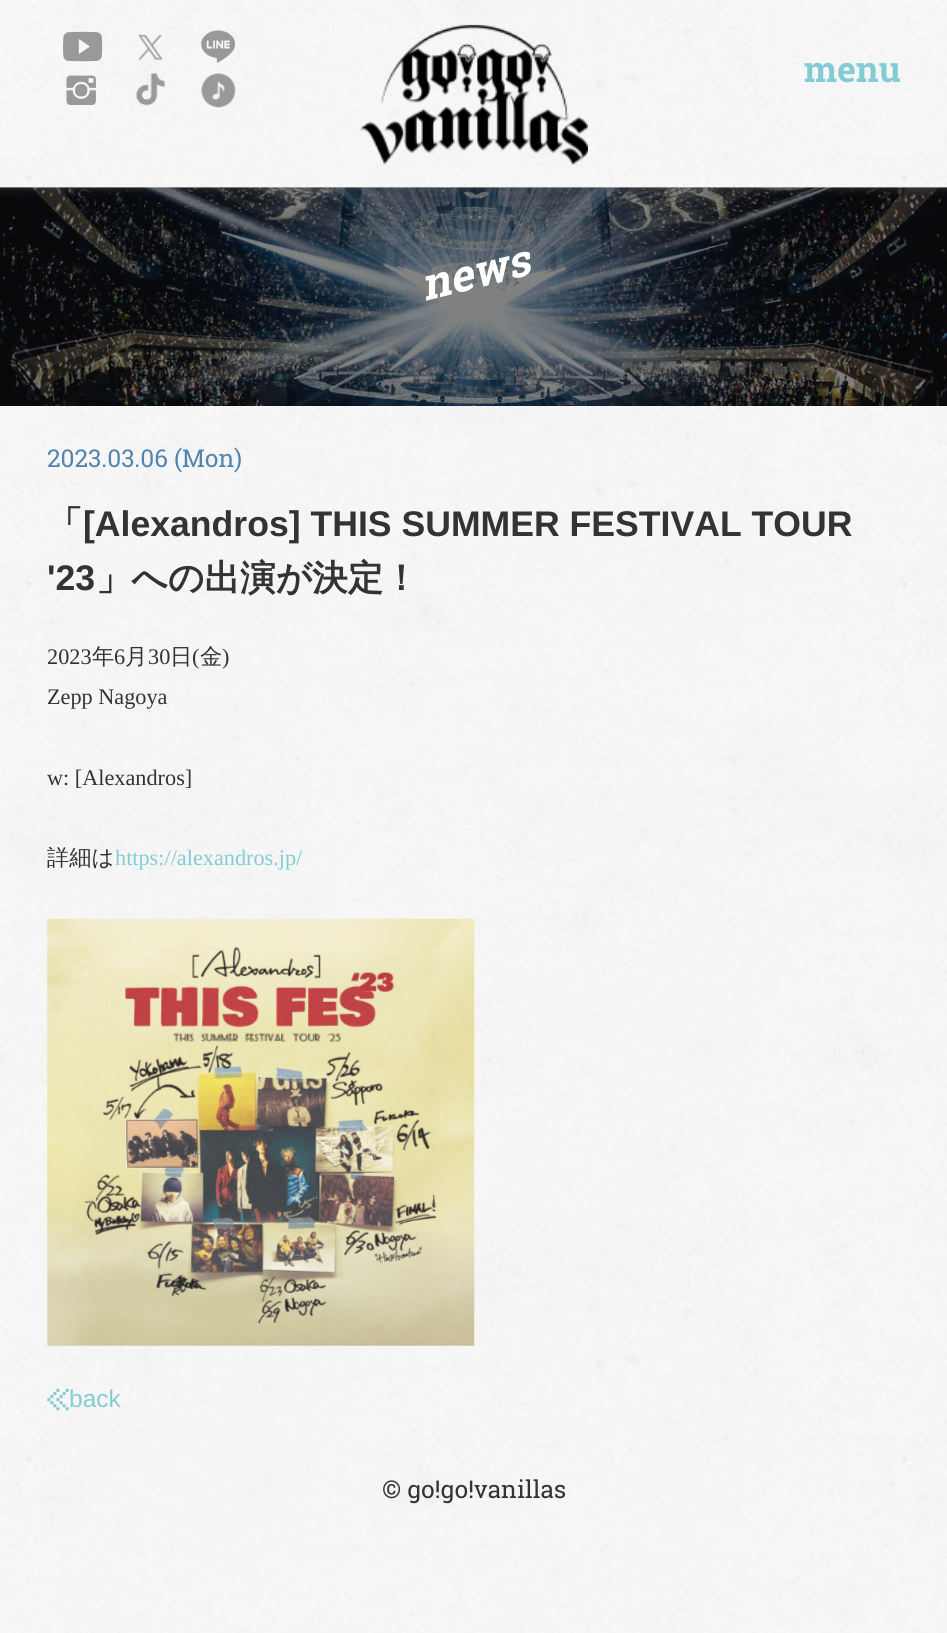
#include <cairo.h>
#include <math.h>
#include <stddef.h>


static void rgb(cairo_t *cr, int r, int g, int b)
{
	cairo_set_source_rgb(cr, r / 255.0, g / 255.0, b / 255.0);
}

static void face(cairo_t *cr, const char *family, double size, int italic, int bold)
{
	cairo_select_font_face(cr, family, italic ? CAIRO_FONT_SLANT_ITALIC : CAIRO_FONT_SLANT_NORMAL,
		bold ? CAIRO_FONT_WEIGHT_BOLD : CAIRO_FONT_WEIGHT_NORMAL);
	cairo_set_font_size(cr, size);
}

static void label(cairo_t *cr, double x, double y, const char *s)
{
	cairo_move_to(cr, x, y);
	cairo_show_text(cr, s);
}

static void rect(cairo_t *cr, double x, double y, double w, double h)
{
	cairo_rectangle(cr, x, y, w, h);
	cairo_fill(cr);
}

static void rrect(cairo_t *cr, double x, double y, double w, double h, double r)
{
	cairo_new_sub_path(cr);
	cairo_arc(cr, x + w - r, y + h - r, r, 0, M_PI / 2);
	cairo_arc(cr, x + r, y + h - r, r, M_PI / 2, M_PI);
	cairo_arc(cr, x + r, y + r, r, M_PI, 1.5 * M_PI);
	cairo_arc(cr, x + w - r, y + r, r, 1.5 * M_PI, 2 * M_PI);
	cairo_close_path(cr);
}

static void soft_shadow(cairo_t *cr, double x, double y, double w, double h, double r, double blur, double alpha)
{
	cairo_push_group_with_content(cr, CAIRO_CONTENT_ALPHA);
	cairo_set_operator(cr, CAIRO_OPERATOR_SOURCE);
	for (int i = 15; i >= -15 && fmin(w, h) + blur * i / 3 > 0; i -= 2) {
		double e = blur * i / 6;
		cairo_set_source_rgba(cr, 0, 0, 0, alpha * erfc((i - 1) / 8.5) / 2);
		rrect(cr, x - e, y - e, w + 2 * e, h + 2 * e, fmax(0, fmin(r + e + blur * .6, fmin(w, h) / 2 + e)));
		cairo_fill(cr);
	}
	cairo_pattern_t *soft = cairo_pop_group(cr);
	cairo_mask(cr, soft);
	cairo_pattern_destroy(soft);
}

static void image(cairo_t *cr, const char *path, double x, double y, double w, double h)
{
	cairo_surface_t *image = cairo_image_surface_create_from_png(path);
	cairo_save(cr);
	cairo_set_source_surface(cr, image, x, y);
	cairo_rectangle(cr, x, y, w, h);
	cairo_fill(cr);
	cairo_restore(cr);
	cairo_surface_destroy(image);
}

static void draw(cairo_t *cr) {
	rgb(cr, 255, 255, 255);
	cairo_paint(cr);
	image(cr, "image0.png", 0, 1554, 947, 79);
	rgb(cr, 17, 17, 17);
	rect(cr, 0, 187, 947, 219);
	image(cr, "image10.png", 0, 187, 947, 219);
	image(cr, "image1.png", 0, 0, 947, 188);
	cairo_save(cr);
	cairo_rectangle(cr, 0, 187, 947, 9);
	cairo_clip(cr);
	rgb(cr, 90, 90, 90);
	soft_shadow(cr, 0, 0, 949, 187, 0, 4.5, 0.7);
	cairo_restore(cr);
	image(cr, "image2.png", 0, 187, 947, 1);
	image(cr, "image3.png", 360, 24, 228, 141);
	image(cr, "image4.png", 63, 31, 40, 31);
	image(cr, "image5.png", 138, 34, 25, 27);
	image(cr, "image6.png", 201, 30, 35, 33);
	image(cr, "image7.png", 66, 75, 30, 30);
	image(cr, "image8.png", 135, 73, 30, 33);
	image(cr, "image9.png", 200, 73, 36, 35);
	face(cr, "Roboto Slab", 35.6, 0, 1);
	rgb(cr, 131, 204, 211);
	label(cr, 804, 82, "menu");
	face(cr, "Roboto Slab", 44.5, 1, 1);
	rgb(cr, 255, 255, 255);
	cairo_save(cr);
	cairo_translate(cr, 425, 301);
	cairo_rotate(cr, -14 * M_PI / 180);
	label(cr, 0, 0, "news");
	cairo_restore(cr);
	image(cr, "image11.png", 0, 406, 947, 1148);
	face(cr, "Roboto Slab", 24.5, 0, 0);
	rgb(cr, 81, 133, 177);
	label(cr, 47, 467, "2023.03.06 (Mon)");
	face(cr, "WenQuanYi Zen Hei", 35.6, 0, 1);
	rgb(cr, 51, 51, 51);
	label(cr, 47, 536, "「");
	face(cr, "Liberation Sans", 35.6, 0, 1);
	label(cr, 83, 536, "[Alexandros] THIS SUMMER FESTIVAL TOUR");
	label(cr, 47, 590, "'23");
	face(cr, "WenQuanYi Zen Hei", 35.6, 0, 1);
	label(cr, 96, 590, "」への出演が決定！");
	face(cr, "Liberation Serif", 22.25, 0, 0);
	label(cr, 47, 664, "2023");
	face(cr, "WenQuanYi Zen Hei Medium", 22.25, 0, 0);
	label(cr, 92, 664, "年");
	face(cr, "Liberation Serif", 22.25, 0, 0);
	label(cr, 114, 664, "6");
	face(cr, "WenQuanYi Zen Hei Medium", 22.25, 0, 0);
	label(cr, 125, 664, "月");
	face(cr, "Liberation Serif", 22.25, 0, 0);
	label(cr, 148, 664, "30");
	face(cr, "WenQuanYi Zen Hei Medium", 22.25, 0, 0);
	label(cr, 170, 664, "日");
	face(cr, "Liberation Serif", 22.25, 0, 0);
	label(cr, 192, 664, "(");
	face(cr, "WenQuanYi Zen Hei Medium", 22.25, 0, 0);
	label(cr, 200, 664, "金");
	face(cr, "Liberation Serif", 22.25, 0, 0);
	label(cr, 222, 664, ")");
	label(cr, 47, 704, "Zepp Nagoya");
	label(cr, 47, 785, "w: [Alexandros]");
	face(cr, "WenQuanYi Zen Hei Medium", 22.25, 0, 0);
	label(cr, 47, 865, "詳細は");
	face(cr, "Liberation Serif", 22.25, 0, 0);
	rgb(cr, 131, 204, 211);
	label(cr, 115, 865, "https://alexandros.jp/");
	image(cr, "image12.png", 47, 918, 428, 428);
	image(cr, "image13.png", 47, 1388, 22, 23);
	face(cr, "Liberation Sans", 24.5, 0, 0);
	label(cr, 69, 1407, "back");
	face(cr, "Roboto Slab", 24.5, 0, 0);
	rgb(cr, 51, 51, 51);
	label(cr, 382, 1498, "© go!go!vanillas");
}

int main(void) {
	cairo_surface_t *surface = cairo_image_surface_create(CAIRO_FORMAT_RGB24, 947, 1633);
	cairo_t *cr = cairo_create(surface);
	cairo_font_options_t *options = cairo_font_options_create();
	cairo_font_options_set_hint_metrics(options, CAIRO_HINT_METRICS_OFF);
	cairo_font_options_set_hint_style(options, CAIRO_HINT_STYLE_NONE);
	cairo_set_font_options(cr, options);
	cairo_set_miter_limit(cr, 4);
	draw(cr);
	cairo_surface_write_to_png(surface, "render.png");
	cairo_font_options_destroy(options);
	cairo_destroy(cr);
	cairo_surface_destroy(surface);
	return 0;
}
